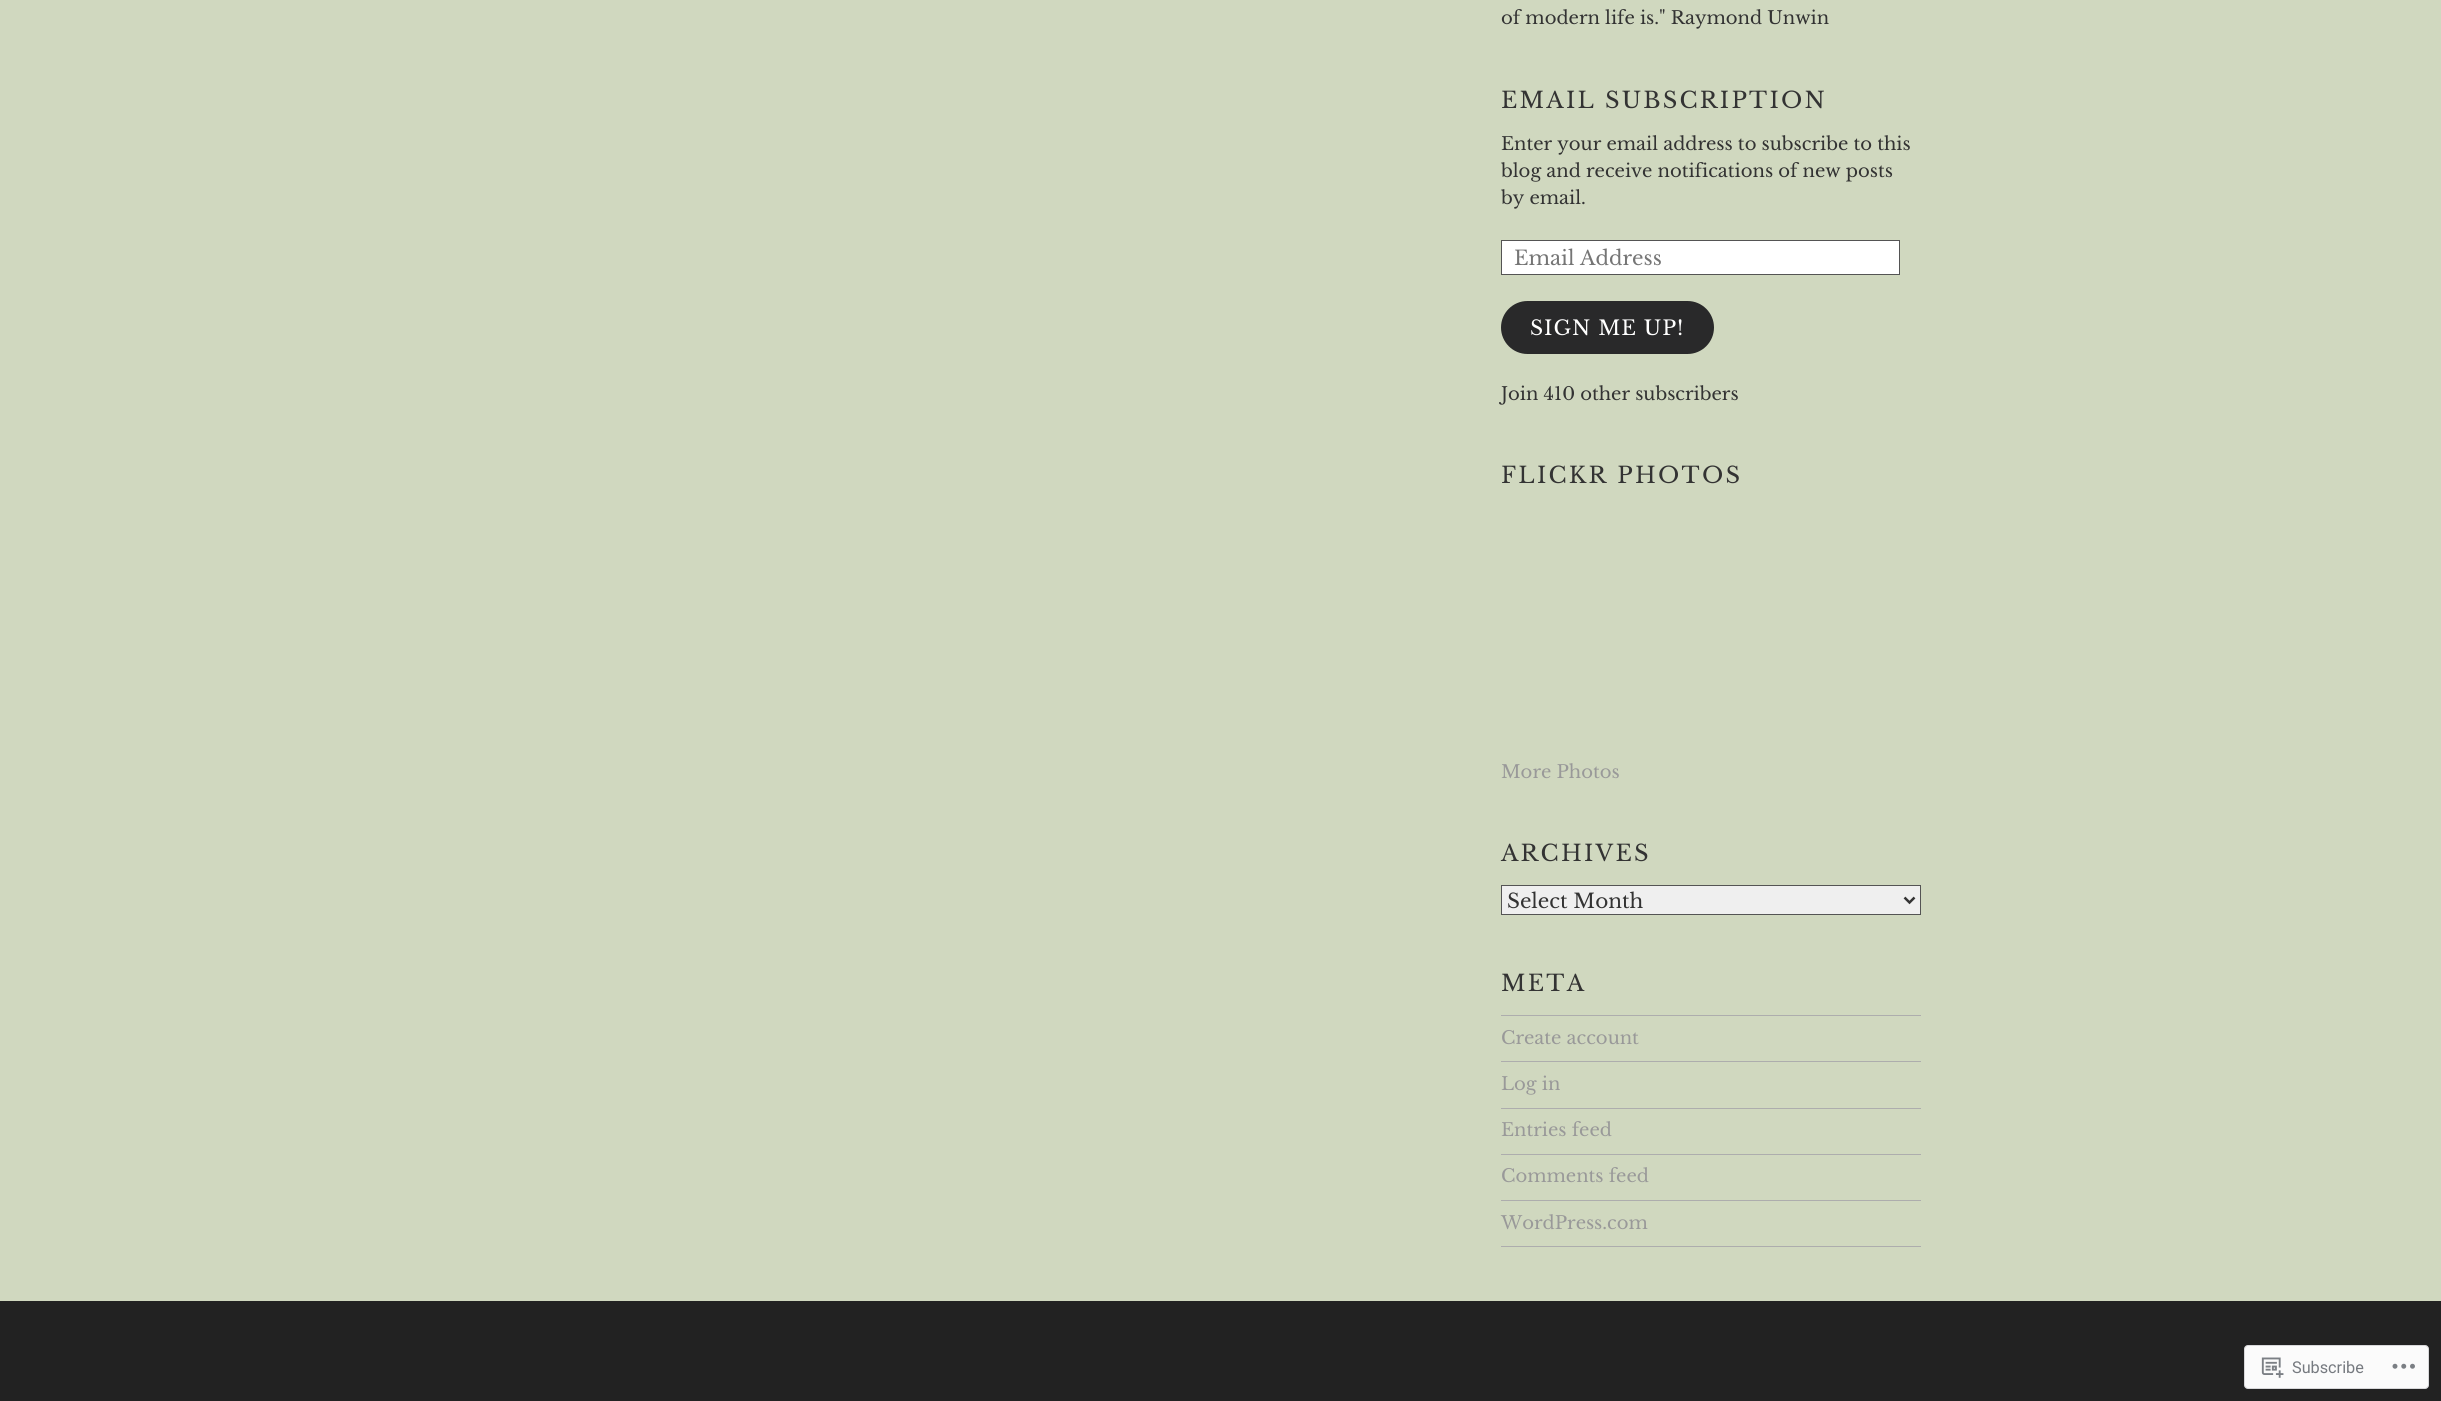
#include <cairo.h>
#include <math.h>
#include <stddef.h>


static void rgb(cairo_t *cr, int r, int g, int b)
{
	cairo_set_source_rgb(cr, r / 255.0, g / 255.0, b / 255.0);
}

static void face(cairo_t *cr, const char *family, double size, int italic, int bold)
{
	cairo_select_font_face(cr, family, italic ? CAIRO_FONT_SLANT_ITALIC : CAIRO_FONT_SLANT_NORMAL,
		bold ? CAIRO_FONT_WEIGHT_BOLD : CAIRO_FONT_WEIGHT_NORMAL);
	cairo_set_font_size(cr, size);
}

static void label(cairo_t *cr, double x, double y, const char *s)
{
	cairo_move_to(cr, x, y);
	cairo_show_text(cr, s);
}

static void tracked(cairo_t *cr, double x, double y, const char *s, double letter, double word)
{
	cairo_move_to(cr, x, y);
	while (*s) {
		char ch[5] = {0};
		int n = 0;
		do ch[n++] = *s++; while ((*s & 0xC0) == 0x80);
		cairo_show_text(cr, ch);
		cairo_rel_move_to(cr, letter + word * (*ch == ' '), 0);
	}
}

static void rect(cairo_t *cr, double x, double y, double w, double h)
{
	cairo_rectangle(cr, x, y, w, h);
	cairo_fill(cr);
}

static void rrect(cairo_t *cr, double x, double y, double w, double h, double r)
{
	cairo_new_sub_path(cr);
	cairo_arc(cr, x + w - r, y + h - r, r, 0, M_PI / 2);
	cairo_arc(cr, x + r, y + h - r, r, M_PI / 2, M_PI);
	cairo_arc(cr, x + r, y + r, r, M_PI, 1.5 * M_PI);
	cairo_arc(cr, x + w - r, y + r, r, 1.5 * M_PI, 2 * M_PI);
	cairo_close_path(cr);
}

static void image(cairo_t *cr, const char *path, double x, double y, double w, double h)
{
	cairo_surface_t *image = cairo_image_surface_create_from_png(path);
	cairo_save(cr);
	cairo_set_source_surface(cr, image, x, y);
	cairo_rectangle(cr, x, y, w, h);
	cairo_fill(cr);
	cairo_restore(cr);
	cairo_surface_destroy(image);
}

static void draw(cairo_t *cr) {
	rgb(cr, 208, 216, 191);
	cairo_paint(cr);
	face(cr, "Libre Baskerville", 18, 0, 0);
	rgb(cr, 51, 51, 51);
	label(cr, 1501, 24, "of modern life is.\" Raymond Unwin");
	face(cr, "Libre Baskerville", 22.5, 0, 0);
	tracked(cr, 1501, 108, "EMAIL SUBSCRIPTION", 2.25, 0);
	face(cr, "Libre Baskerville", 18, 0, 0);
	label(cr, 1501, 150, "Enter your email address to subscribe to this");
	label(cr, 1501, 177, "blog and receive notifications of new posts");
	label(cr, 1501, 204, "by email.");
	rgb(cr, 255, 255, 255);
	cairo_rectangle(cr, 1501.5, 240.5, 398, 34);
	cairo_fill_preserve(cr);
	rgb(cr, 84, 84, 84);
	cairo_set_line_width(cr, 1);
	cairo_stroke(cr);
	face(cr, "Libre Baskerville", 20, 0, 0);
	rgb(cr, 117, 117, 117);
	label(cr, 1514, 265, "Email Address");
	rgb(cr, 41, 41, 42);
	rrect(cr, 1501, 301, 213, 53, 26.5);
	cairo_fill(cr);
	face(cr, "Libre Baskerville", 20.25, 0, 0);
	rgb(cr, 255, 255, 255);
	tracked(cr, 1530, 335, "SIGN ME UP!", 1, 0);
	face(cr, "Libre Baskerville", 18, 0, 0);
	rgb(cr, 51, 51, 51);
	label(cr, 1501, 400, "Join 410 other subscribers");
	face(cr, "Libre Baskerville", 22.5, 0, 0);
	tracked(cr, 1501, 483, "FLICKR PHOTOS", 2.25, 0);
	face(cr, "Libre Baskerville", 18, 0, 0);
	rgb(cr, 153, 153, 153);
	label(cr, 1501, 778, "More Photos");
	face(cr, "Libre Baskerville", 22.5, 0, 0);
	rgb(cr, 51, 51, 51);
	tracked(cr, 1501, 861, "ARCHIVES", 2.25, 0);
	rgb(cr, 239, 239, 239);
	cairo_rectangle(cr, 1501.5, 885.5, 419, 29);
	cairo_fill_preserve(cr);
	rgb(cr, 84, 84, 84);
	cairo_stroke(cr);
	cairo_new_path(cr);
	cairo_move_to(cr, 1904.5, 897.5);
	cairo_line_to(cr, 1909.5, 902.5);
	cairo_line_to(cr, 1914.5, 897.5);
	rgb(cr, 51, 51, 51);
	cairo_set_line_width(cr, 2.5);
	cairo_stroke(cr);
	face(cr, "Libre Baskerville", 20, 0, 0);
	label(cr, 1507, 908, "Select Month");
	face(cr, "Libre Baskerville", 22.5, 0, 0);
	tracked(cr, 1501, 991, "META", 2.25, 0);
	rgb(cr, 173, 173, 173);
	rect(cr, 1501, 1015, 420, 1);
	rect(cr, 1501, 1061, 420, 1);
	face(cr, "Libre Baskerville", 18, 0, 0);
	rgb(cr, 153, 153, 153);
	label(cr, 1501, 1044, "Create account");
	rgb(cr, 173, 173, 173);
	rect(cr, 1501, 1108, 420, 1);
	rgb(cr, 153, 153, 153);
	label(cr, 1501, 1090, "Log in");
	rgb(cr, 173, 173, 173);
	rect(cr, 1501, 1154, 420, 1);
	rgb(cr, 153, 153, 153);
	label(cr, 1501, 1136, "Entries feed");
	rgb(cr, 173, 173, 173);
	rect(cr, 1501, 1200, 420, 1);
	rgb(cr, 153, 153, 153);
	label(cr, 1501, 1182, "Comments feed");
	rgb(cr, 173, 173, 173);
	rect(cr, 1501, 1246, 420, 1);
	rgb(cr, 153, 153, 153);
	label(cr, 1501, 1229, "WordPress.com");
	rgb(cr, 34, 34, 34);
	rect(cr, 0, 1301, 2441, 100);
	rgb(cr, 251, 251, 251);
	rrect(cr, 2244.5, 1345.5, 184, 43, 3.5);
	cairo_fill_preserve(cr);
	rgb(cr, 216, 216, 218);
	cairo_set_line_width(cr, 1);
	cairo_stroke(cr);
	image(cr, "image0.png", 2261, 1357, 23, 21);
	face(cr, "Roboto", 16.25, 0, 0);
	rgb(cr, 118, 122, 128);
	label(cr, 2292, 1373, "Subscribe");
	image(cr, "image1.png", 2392, 1363, 23, 6);
}

int main(void) {
	cairo_surface_t *surface = cairo_image_surface_create(CAIRO_FORMAT_RGB24, 2441, 1401);
	cairo_t *cr = cairo_create(surface);
	cairo_font_options_t *options = cairo_font_options_create();
	cairo_font_options_set_hint_metrics(options, CAIRO_HINT_METRICS_OFF);
	cairo_font_options_set_hint_style(options, CAIRO_HINT_STYLE_NONE);
	cairo_set_font_options(cr, options);
	cairo_set_miter_limit(cr, 4);
	draw(cr);
	cairo_surface_write_to_png(surface, "render.png");
	cairo_font_options_destroy(options);
	cairo_destroy(cr);
	cairo_surface_destroy(surface);
	return 0;
}
